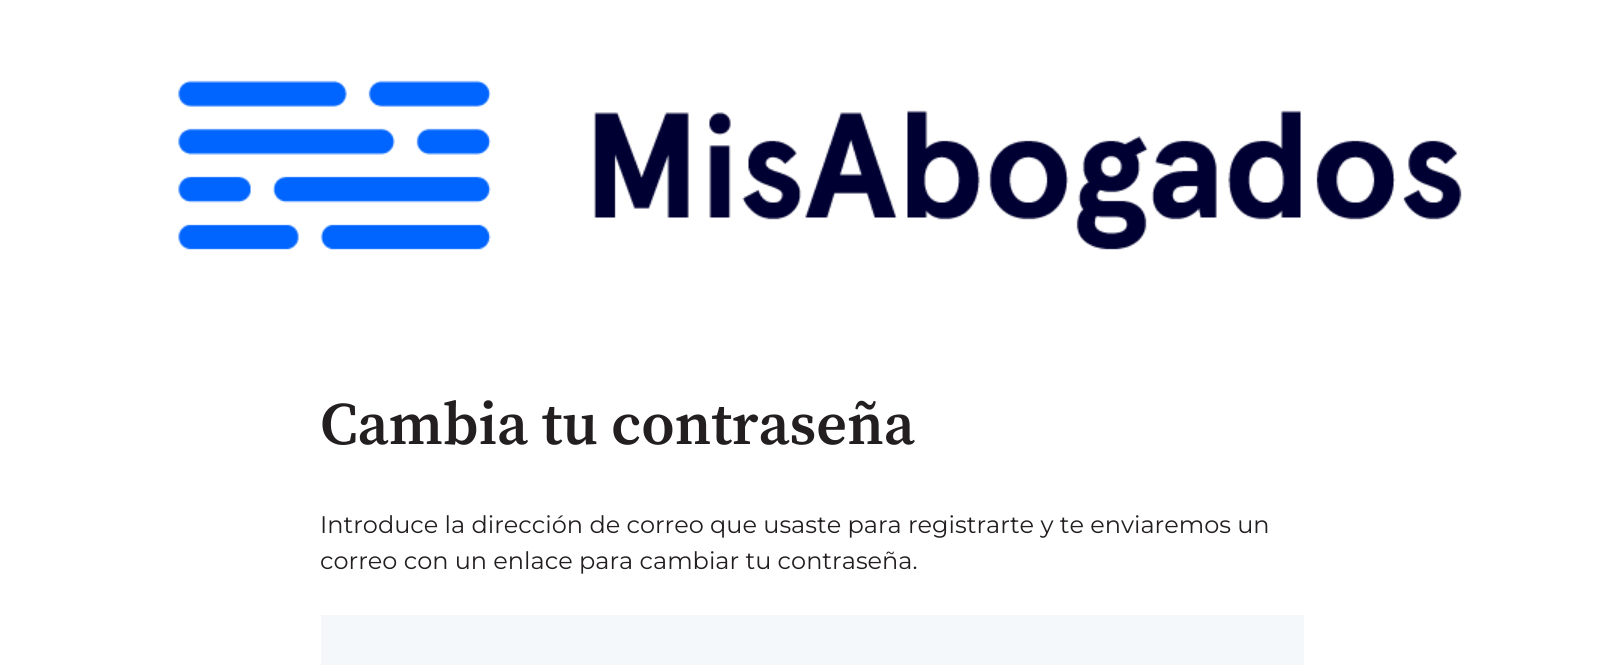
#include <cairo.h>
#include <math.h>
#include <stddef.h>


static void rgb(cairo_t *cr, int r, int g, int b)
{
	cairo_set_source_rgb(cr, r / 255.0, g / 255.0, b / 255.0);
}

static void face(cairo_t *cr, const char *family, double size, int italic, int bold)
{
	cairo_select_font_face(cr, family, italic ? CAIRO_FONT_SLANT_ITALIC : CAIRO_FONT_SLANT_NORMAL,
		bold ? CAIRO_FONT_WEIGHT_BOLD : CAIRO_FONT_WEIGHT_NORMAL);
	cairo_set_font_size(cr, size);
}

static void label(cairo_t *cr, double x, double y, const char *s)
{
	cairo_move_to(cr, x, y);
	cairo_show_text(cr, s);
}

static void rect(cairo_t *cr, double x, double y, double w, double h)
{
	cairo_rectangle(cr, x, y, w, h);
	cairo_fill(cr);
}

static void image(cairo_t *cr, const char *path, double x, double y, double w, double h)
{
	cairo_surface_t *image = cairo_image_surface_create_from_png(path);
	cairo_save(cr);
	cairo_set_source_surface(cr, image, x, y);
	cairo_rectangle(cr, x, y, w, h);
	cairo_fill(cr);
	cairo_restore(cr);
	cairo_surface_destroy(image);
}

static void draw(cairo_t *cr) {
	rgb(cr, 255, 255, 255);
	cairo_paint(cr);
	image(cr, "image0.png", 178, 80, 1284, 170);
	face(cr, "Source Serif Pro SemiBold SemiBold", 60, 0, 0);
	rgb(cr, 35, 31, 32);
	label(cr, 320, 444, "Cambia tu contraseña");
	face(cr, "Montserrat", 24, 0, 0);
	label(cr, 320, 533, "Introduce la dirección de correo que usaste para registrarte y te enviaremos un");
	label(cr, 320, 569, "correo con un enlace para cambiar tu contraseña.");
	rgb(cr, 245, 248, 250);
	rect(cr, 321, 615, 983, 50);
}

int main(void) {
	cairo_surface_t *surface = cairo_image_surface_create(CAIRO_FORMAT_RGB24, 1622, 665);
	cairo_t *cr = cairo_create(surface);
	cairo_font_options_t *options = cairo_font_options_create();
	cairo_font_options_set_hint_metrics(options, CAIRO_HINT_METRICS_OFF);
	cairo_font_options_set_hint_style(options, CAIRO_HINT_STYLE_NONE);
	cairo_set_font_options(cr, options);
	cairo_set_miter_limit(cr, 4);
	draw(cr);
	cairo_surface_write_to_png(surface, "render.png");
	cairo_font_options_destroy(options);
	cairo_destroy(cr);
	cairo_surface_destroy(surface);
	return 0;
}
